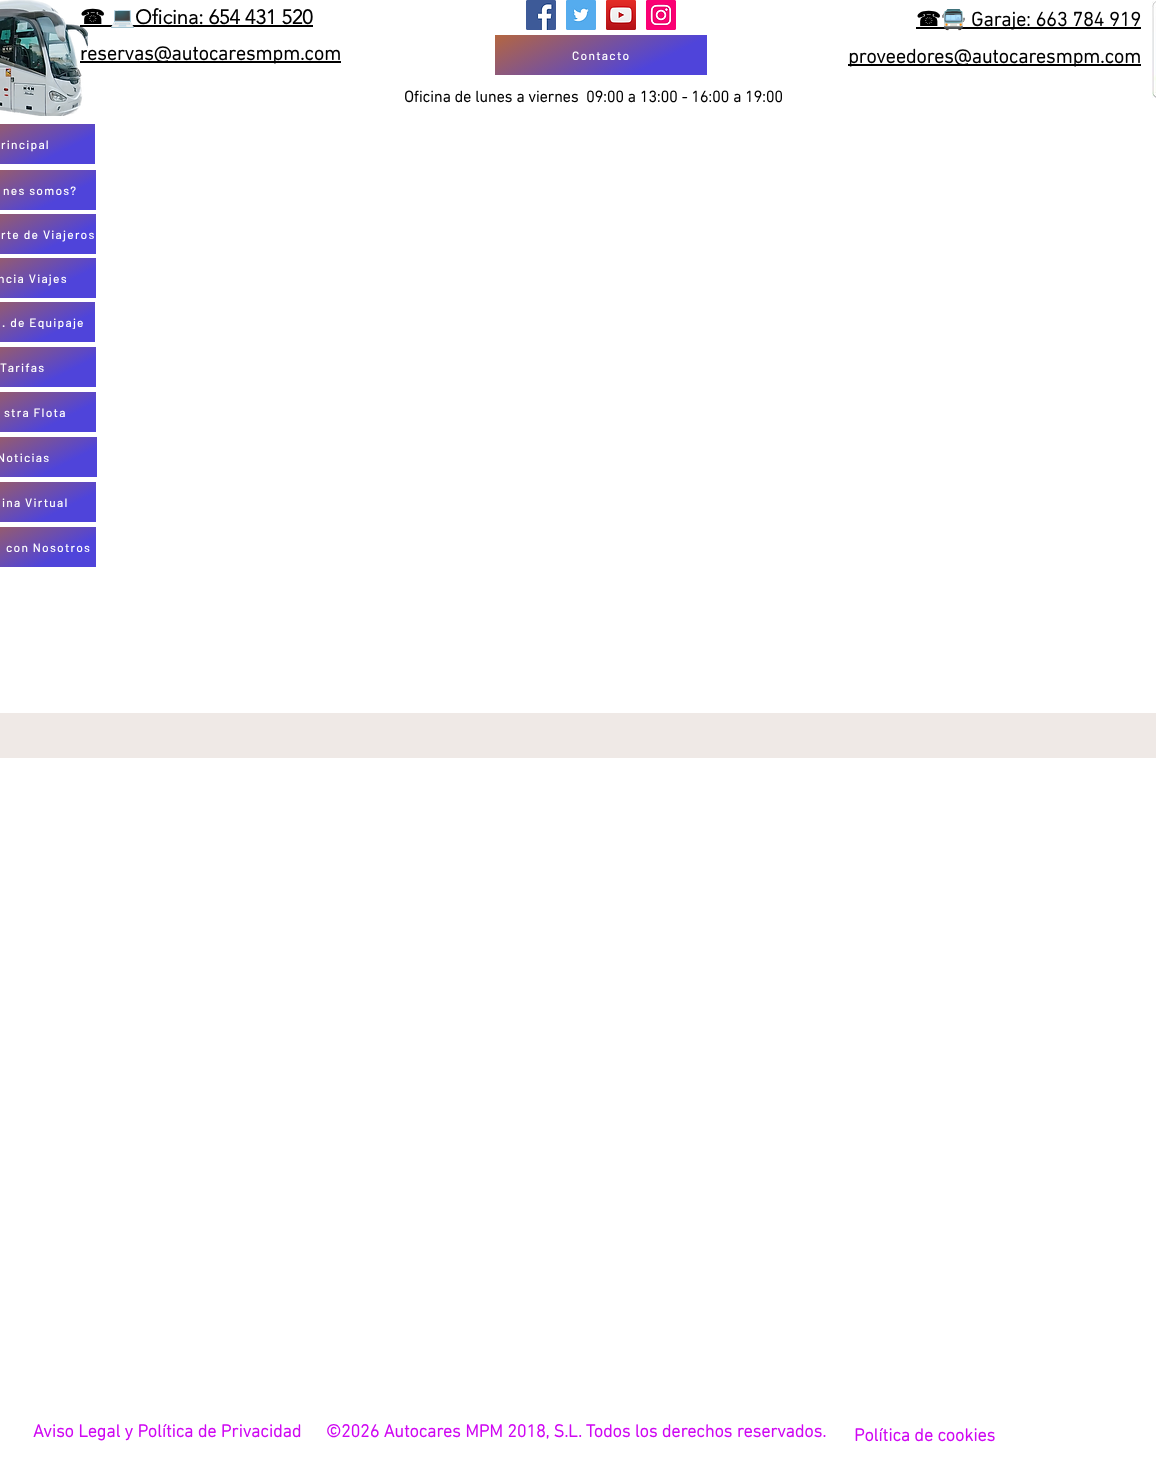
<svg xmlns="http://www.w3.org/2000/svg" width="1156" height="1469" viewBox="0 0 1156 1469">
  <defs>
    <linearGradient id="g1" gradientUnits="userSpaceOnUse" x1="631" y1="114" x2="571" y2="-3.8"><stop offset="0.26" stop-color="#4f44da"/><stop offset="1" stop-color="#b46640"/></linearGradient>
    <linearGradient id="g2" gradientUnits="userSpaceOnUse" x1="45" y1="190" x2="-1.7" y2="98"><stop offset="0.26" stop-color="#4f44da"/><stop offset="1" stop-color="#b46640"/></linearGradient>
    <linearGradient id="g3" gradientUnits="userSpaceOnUse" x1="46" y1="236" x2="-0.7" y2="144"><stop offset="0.26" stop-color="#4f44da"/><stop offset="1" stop-color="#b46640"/></linearGradient>
    <linearGradient id="g4" gradientUnits="userSpaceOnUse" x1="46" y1="280" x2="-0.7" y2="188"><stop offset="0.26" stop-color="#4f44da"/><stop offset="1" stop-color="#b46640"/></linearGradient>
    <linearGradient id="g5" gradientUnits="userSpaceOnUse" x1="45" y1="324" x2="-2.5" y2="232"><stop offset="0.26" stop-color="#4f44da"/><stop offset="1" stop-color="#b46640"/></linearGradient>
    <linearGradient id="g6" gradientUnits="userSpaceOnUse" x1="45" y1="368" x2="-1.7" y2="276"><stop offset="0.26" stop-color="#4f44da"/><stop offset="1" stop-color="#b46640"/></linearGradient>
    <clipPath id="clip1"><rect x="0" y="315" width="84" height="14"/></clipPath>
    <linearGradient id="g7" gradientUnits="userSpaceOnUse" x1="46" y1="413" x2="-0.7" y2="321"><stop offset="0.26" stop-color="#4f44da"/><stop offset="1" stop-color="#b46640"/></linearGradient>
    <linearGradient id="g8" gradientUnits="userSpaceOnUse" x1="46" y1="458" x2="-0.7" y2="366"><stop offset="0.26" stop-color="#4f44da"/><stop offset="1" stop-color="#b46640"/></linearGradient>
    <linearGradient id="g9" gradientUnits="userSpaceOnUse" x1="47" y1="503" x2="0.3" y2="411"><stop offset="0.26" stop-color="#4f44da"/><stop offset="1" stop-color="#b46640"/></linearGradient>
    <linearGradient id="g10" gradientUnits="userSpaceOnUse" x1="46" y1="548" x2="-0.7" y2="456"><stop offset="0.26" stop-color="#4f44da"/><stop offset="1" stop-color="#b46640"/></linearGradient>
    <linearGradient id="g11" gradientUnits="userSpaceOnUse" x1="46" y1="593" x2="-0.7" y2="501"><stop offset="0.26" stop-color="#4f44da"/><stop offset="1" stop-color="#b46640"/></linearGradient>
  </defs>
  <rect width="100%" height="100%" fill="#ffffff"/>
  <image x="0" y="0" width="88" height="116" href="img1.png"/>
  <text x="80" y="24" font-family="DejaVu Sans" font-size="20" font-weight="bold" fill="#000000">☎</text>
  <rect x="80" y="25" width="233" height="2" fill="#000000"/>
  <text x="110" y="24" font-family="Noto Color Emoji" font-size="20" font-weight="bold" fill="#000000">💻</text>
  <text x="135" y="24" font-family="'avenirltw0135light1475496'" font-size="20" font-weight="bold" fill="#000000">Oficina: 654 431 520</text>
  <text x="80" y="60" font-family="'avenirltw0135light1475496'" font-size="20" font-weight="bold" fill="#000000">r</text>
  <rect x="80" y="61" width="261" height="2" fill="#000000"/>
  <text x="87" y="60" font-family="'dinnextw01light'" font-size="20" font-weight="bold" fill="#000000">eservas@autocaresmpm.com</text>
  <image x="526" y="0" width="30" height="30" href="img2.png"/>
  <image x="566" y="0" width="30" height="30" href="img3.png"/>
  <image x="606" y="0" width="30" height="30" href="img4.png"/>
  <image x="646" y="0" width="30" height="30" href="img5.png"/>
  <text x="916" y="26" font-family="DejaVu Sans" font-size="20" font-weight="bold" fill="#000000">☎</text>
  <rect x="916" y="27" width="225" height="2" fill="#000000"/>
  <text x="941" y="26" font-family="Noto Color Emoji" font-size="20" font-weight="bold" fill="#000000">🚍</text>
  <text x="971" y="26" font-family="'dinnextw01light'" font-size="20" font-weight="bold" fill="#000000">Garaje: 663 784 919</text>
  <rect x="848" y="64" width="293" height="2" fill="#000000"/>
  <text x="848" y="63" font-family="'dinnextw01light'" font-size="20" font-weight="bold" fill="#000000">proveedores@autocaresmpm.com</text>
  <image x="1152" y="1" width="4" height="97" href="img6.png"/>
  <rect x="495" y="35" width="212" height="40" fill="url(#g1)"/>
  <text x="572" y="60" font-family="Barlow" font-size="12" font-weight="500" letter-spacing="1.25" fill="#ffffff">Contacto</text>
  <text x="404" y="102" font-family="'dinnextw01light'" font-size="16" font-weight="bold" fill="#000000">Oficina de lunes a viernes</text>
  <text x="586" y="102" font-family="'dinnextw01light'" font-size="16" font-weight="bold" fill="#000000">09:00 a 13:00 - 16:00 a 19:00</text>
  <rect x="0" y="124" width="95" height="40" fill="url(#g2)"/>
  <text x="1" y="149" font-family="Barlow" font-size="12" font-weight="500" letter-spacing="1.25" fill="#ffffff">rincipal</text>
  <rect x="0" y="170" width="96" height="40" fill="url(#g3)"/>
  <text x="3" y="195" font-family="Barlow" font-size="12" font-weight="500" letter-spacing="1.25" fill="#ffffff">nes somos?</text>
  <rect x="0" y="214" width="96" height="40" fill="url(#g4)"/>
  <text x="1" y="239" font-family="Barlow" font-size="12" font-weight="500" letter-spacing="1.25" fill="#ffffff">rte de Viajeros</text>
  <rect x="0" y="258" width="96" height="40" fill="url(#g5)"/>
  <text x="-2" y="283" font-family="Barlow" font-size="12" font-weight="500" letter-spacing="1.25" fill="#ffffff">ncia Viajes</text>
  <rect x="0" y="302" width="95" height="40" fill="url(#g6)"/>
  <g clip-path="url(#clip1)">
    <text x="2" y="327" font-family="Barlow" font-size="12" font-weight="500" letter-spacing="1.25" fill="#ffffff">. de Equipaje</text>
  </g>
  <rect x="0" y="347" width="96" height="40" fill="url(#g7)"/>
  <text x="0" y="372" font-family="Barlow" font-size="12" font-weight="500" letter-spacing="1.25" fill="#ffffff">Tarifas</text>
  <rect x="0" y="392" width="96" height="40" fill="url(#g8)"/>
  <text x="4" y="417" font-family="Barlow" font-size="12" font-weight="500" letter-spacing="1.25" fill="#ffffff">stra Flota</text>
  <rect x="0" y="437" width="97" height="40" fill="url(#g9)"/>
  <text x="-3" y="462" font-family="Barlow" font-size="12" font-weight="500" letter-spacing="1.25" fill="#ffffff">Noticias</text>
  <rect x="0" y="482" width="96" height="40" fill="url(#g10)"/>
  <text x="2" y="507" font-family="Barlow" font-size="12" font-weight="500" letter-spacing="1.25" fill="#ffffff">ina Virtual</text>
  <rect x="0" y="527" width="96" height="40" fill="url(#g11)"/>
  <text x="6" y="552" font-family="Barlow" font-size="12" font-weight="500" letter-spacing="1.25" fill="#ffffff">con Nosotros</text>
  <rect x="0" y="713" width="1156" height="45" fill="#efe9e6"/>
  <text x="33" y="1437" font-family="'dinnextw01light'" font-size="18" font-weight="bold" fill="#cf07f2">Aviso Legal y Política de Privacidad</text>
  <text x="326" y="1437" font-family="'dinnextw01light'" font-size="18" font-weight="bold" fill="#cf07f2">©2026 Autocares MPM 2018, S.L. Todos los derechos reservados.</text>
  <text x="854" y="1441" font-family="'dinnextw01light'" font-size="18" font-weight="bold" fill="#cf07f2">Política de cookies</text>
</svg>
